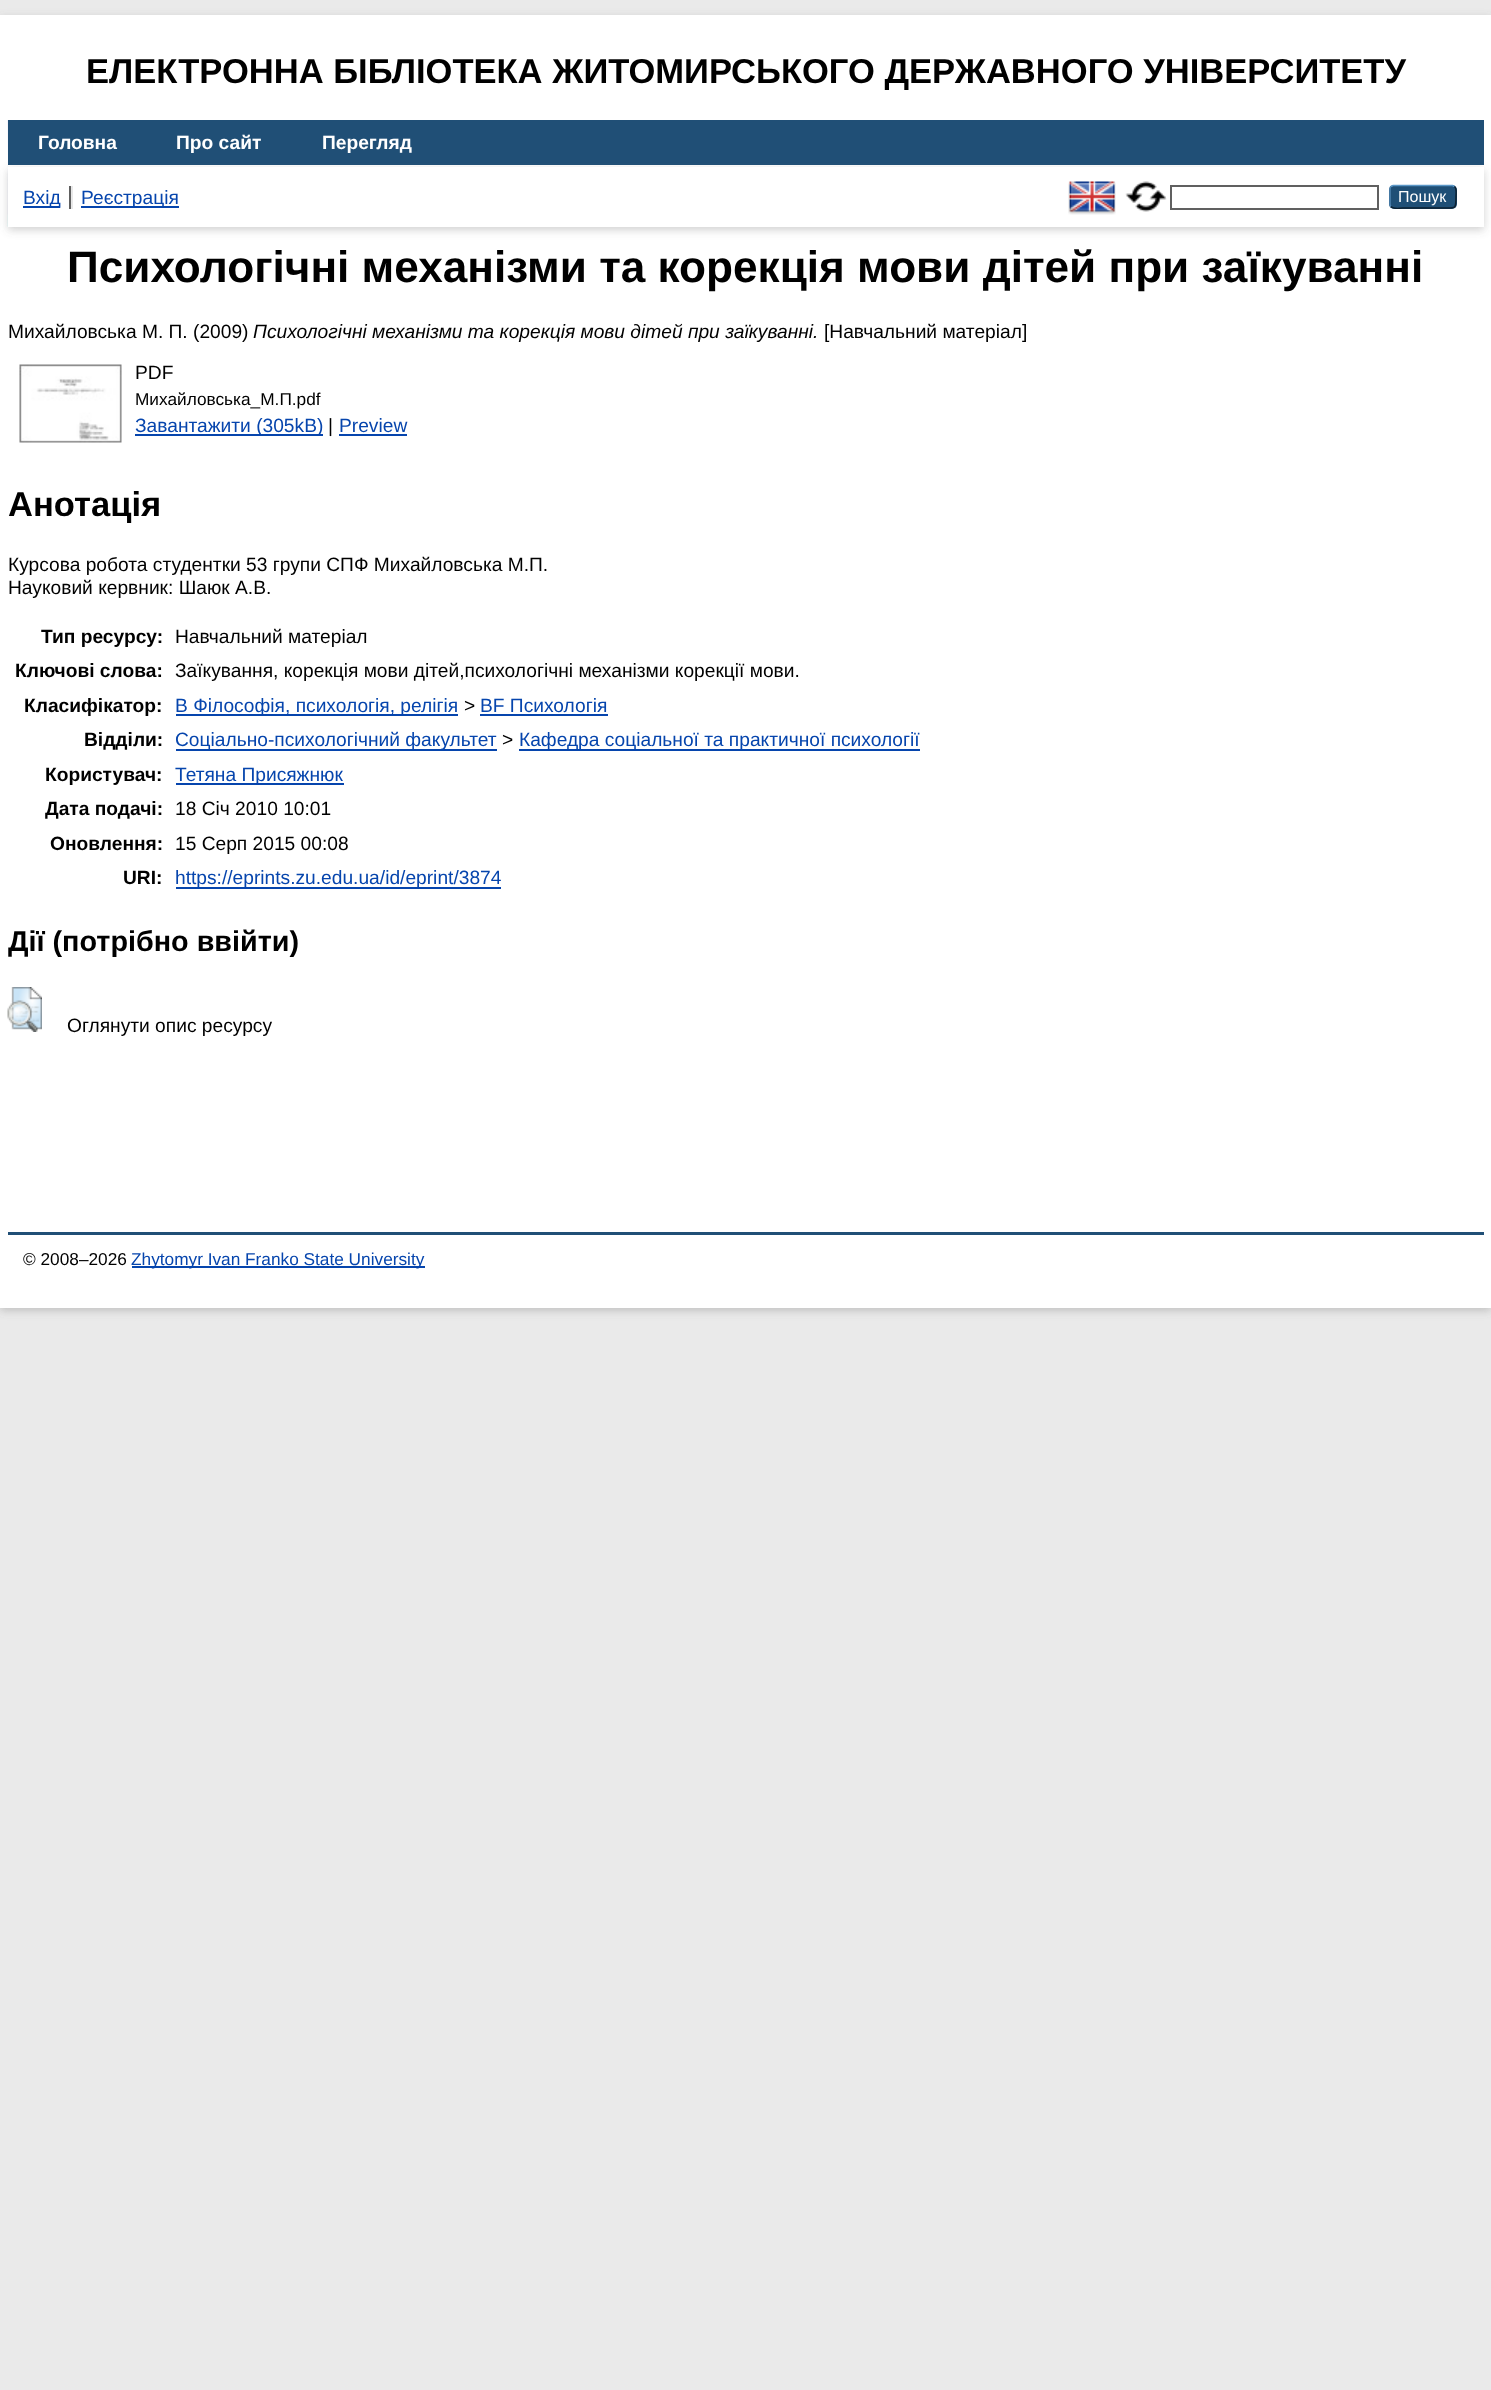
<svg xmlns="http://www.w3.org/2000/svg" width="1491" height="2390" viewBox="0 0 1491 2390">
  <defs>
    <filter id="blur1" x="-50%" y="-200%" width="200%" height="500%"><feGaussianBlur stdDeviation="4.5"/></filter>
  </defs>
  <rect width="100%" height="100%" fill="#eaeaea"/>
  <rect x="0" y="18" width="1491" height="1293" fill="#646464" fill-opacity="0.3" filter="url(#blur1)"/>
  <rect x="0" y="15" width="1491" height="1293" fill="#ffffff"/>
  <text x="86" y="83" font-family="Liberation Sans" font-size="34.55" font-weight="bold" fill="#000000">ЕЛЕКТРОННА БІБЛІОТЕКА ЖИТОМИРСЬКОГО ДЕРЖАВНОГО УНІВЕРСИТЕТУ</text>
  <image x="7" y="120" width="1" height="107" href="img1.png"/>
  <rect x="8" y="120" width="1476" height="45" fill="#204f76"/>
  <text x="38" y="149" font-family="Liberation Sans" font-size="19.2" font-weight="bold" fill="#ffffff">Головна</text>
  <text x="176" y="149" font-family="Liberation Sans" font-size="19.2" font-weight="bold" fill="#ffffff">Про сайт</text>
  <text x="322" y="149" font-family="Liberation Sans" font-size="19.2" font-weight="bold" fill="#ffffff">Перегляд</text>
  <rect x="8" y="170" width="1476" height="60" fill="#646464" fill-opacity="0.3" filter="url(#blur1)"/>
  <rect x="8" y="167" width="1476" height="60" fill="#ffffff"/>
  <rect x="69" y="186" width="2" height="23" fill="#606060"/>
  <rect x="23" y="206" width="37" height="2" fill="#0645ad"/>
  <text x="23" y="204" font-family="Liberation Sans" font-size="19.2" fill="#0645ad">Вхід</text>
  <rect x="71" y="186" width="2" height="23" fill="#e8e8e8"/>
  <rect x="81" y="206" width="98" height="2" fill="#0645ad"/>
  <text x="81" y="204" font-family="Liberation Sans" font-size="19.2" fill="#0645ad">Реєстрація</text>
  <image x="1068" y="181" width="48" height="34" href="img2.png"/>
  <image x="1125" y="181" width="42" height="31" href="img3.png"/>
  <rect x="1171" y="186" width="207" height="23" fill="none" stroke="#606060" stroke-width="2"/>
  <rect x="1389" y="185" width="68" height="24" rx="5" fill="#1f4f76"/>
  <path d="M1391 186.5L1393 185.5H1452.5L1454.5 186.5" fill="none" stroke="#5b97c7" stroke-width="1.5"/>
  <path d="M1454.5 186.5C1457 188.5 1456 193.5 1456 196.5C1456 209.5 1456 208 1442 208H1403C1402.5 208 1393.5 209.5 1391 206.5" fill="none" stroke="#0d2131" stroke-width="1.5"/>
  <path d="M1391 206.5C1390 206 1390 205 1390 204V189C1390 188 1390 187 1391 186.5" fill="none" stroke="#5287b3" stroke-width="1.5"/>
  <text x="1398" y="202" font-family="Liberation Sans" font-size="16" fill="#ffffff">Пошук</text>
  <text x="67" y="282" font-family="Liberation Sans" font-size="44.15" font-weight="bold" fill="#000000">Психологічні механізми та корекція мови дітей при заїкуванні</text>
  <text x="8" y="338" font-family="Liberation Sans" font-size="19.2" fill="#000000">Михайловська М. П. (2009)</text>
  <text x="253" y="338" font-family="Liberation Sans" font-size="19.2" font-style="italic" fill="#000000">Психологічні механізми та корекція мови дітей при заїкуванні.</text>
  <text x="824" y="338" font-family="Liberation Sans" font-size="19.2" fill="#000000">[Навчальний матеріал]</text>
  <image x="19" y="364" width="103" height="79" href="img4.png"/>
  <text x="135" y="379" font-family="Liberation Sans" font-size="19.2" fill="#000000">PDF</text>
  <text x="135" y="405" font-family="Liberation Sans" font-size="17.25" fill="#000000">Михайловська_М.П.pdf</text>
  <rect x="135" y="434" width="188" height="2" fill="#0645ad"/>
  <text x="135" y="432" font-family="Liberation Sans" font-size="19.2" fill="#0645ad">Завантажити (305kB)</text>
  <text x="328" y="432" font-family="Liberation Sans" font-size="19.2" fill="#000000">|</text>
  <text x="339" y="432" font-family="Liberation Sans" font-size="19.2" fill="#0645ad">Preview</text>
  <rect x="339" y="434" width="68" height="2" fill="#0645ad"/>
  <text x="8" y="516" font-family="Liberation Sans" font-size="34.55" font-weight="bold" fill="#000000">Анотація</text>
  <text x="8" y="571" font-family="Liberation Sans" font-size="19.2" fill="#000000">Курсова робота студентки 53 групи СПФ Михайловська М.П.</text>
  <text x="8" y="594" font-family="Liberation Sans" font-size="19.2" fill="#000000">Науковий кервник: Шаюк А.В.</text>
  <text x="41" y="643" font-family="Liberation Sans" font-size="19.2" font-weight="bold" fill="#000000">Тип ресурсу:</text>
  <text x="175" y="643" font-family="Liberation Sans" font-size="19.2" fill="#000000">Навчальний матеріал</text>
  <text x="15" y="677" font-family="Liberation Sans" font-size="19.2" font-weight="bold" fill="#000000">Ключові слова:</text>
  <text x="175" y="677" font-family="Liberation Sans" font-size="19.2" fill="#000000">Заїкування, корекція мови дітей,психологічні механізми корекції мови.</text>
  <text x="24" y="712" font-family="Liberation Sans" font-size="19.2" font-weight="bold" fill="#000000">Класифікатор:</text>
  <rect x="176" y="714" width="282" height="2" fill="#0645ad"/>
  <text x="175" y="712" font-family="Liberation Sans" font-size="19.2" fill="#0645ad">B Філософія, психологія, релігія</text>
  <text x="464" y="712" font-family="Liberation Sans" font-size="19.2" fill="#000000">&gt;</text>
  <text x="480" y="712" font-family="Liberation Sans" font-size="19.2" fill="#0645ad">BF Психологія</text>
  <rect x="480" y="714" width="128" height="2" fill="#0645ad"/>
  <text x="84" y="746" font-family="Liberation Sans" font-size="19.2" font-weight="bold" fill="#000000">Відділи:</text>
  <rect x="176" y="749" width="321" height="2" fill="#0645ad"/>
  <text x="175" y="746" font-family="Liberation Sans" font-size="19.2" fill="#0645ad">Соціально-психологічний факультет</text>
  <text x="502" y="746" font-family="Liberation Sans" font-size="19.2" fill="#000000">&gt;</text>
  <rect x="519" y="749" width="401" height="2" fill="#0645ad"/>
  <text x="519" y="746" font-family="Liberation Sans" font-size="19.2" fill="#0645ad">Кафедра соціальної та практичної психології</text>
  <text x="45" y="781" font-family="Liberation Sans" font-size="19.2" font-weight="bold" fill="#000000">Користувач:</text>
  <rect x="176" y="783" width="168" height="2" fill="#0645ad"/>
  <text x="175" y="781" font-family="Liberation Sans" font-size="19.2" fill="#0645ad">Тетяна Присяжнюк</text>
  <text x="45" y="815" font-family="Liberation Sans" font-size="19.2" font-weight="bold" fill="#000000">Дата подачі:</text>
  <text x="175" y="815" font-family="Liberation Sans" font-size="19.2" fill="#000000">18 Січ 2010 10:01</text>
  <text x="50" y="850" font-family="Liberation Sans" font-size="19.2" font-weight="bold" fill="#000000">Оновлення:</text>
  <text x="175" y="850" font-family="Liberation Sans" font-size="19.2" fill="#000000">15 Серп 2015 00:08</text>
  <text x="123" y="884" font-family="Liberation Sans" font-size="19.2" font-weight="bold" fill="#000000">URI:</text>
  <rect x="176" y="887" width="325" height="2" fill="#0645ad"/>
  <text x="175" y="884" font-family="Liberation Sans" font-size="19.2" fill="#0645ad">https://eprints.zu.edu.ua/id/eprint/3874</text>
  <text x="8" y="951" font-family="Liberation Sans" font-size="28.75" font-weight="bold" fill="#000000">Дії (потрібно ввійти)</text>
  <image x="7" y="987" width="35" height="45" href="img5.png"/>
  <text x="67" y="1032" font-family="Liberation Sans" font-size="19.2" fill="#000000">Оглянути опис ресурсу</text>
  <rect x="8" y="1232" width="1476" height="3" fill="#204f76"/>
  <text x="23" y="1265" font-family="Liberation Sans" font-size="17.25" fill="#000000">© 2008–2026</text>
  <rect x="132" y="1266" width="293" height="2" fill="#0645ad"/>
  <text x="131" y="1265" font-family="Liberation Sans" font-size="17.25" fill="#0645ad">Zhytomyr Ivan Franko State University</text>
</svg>
